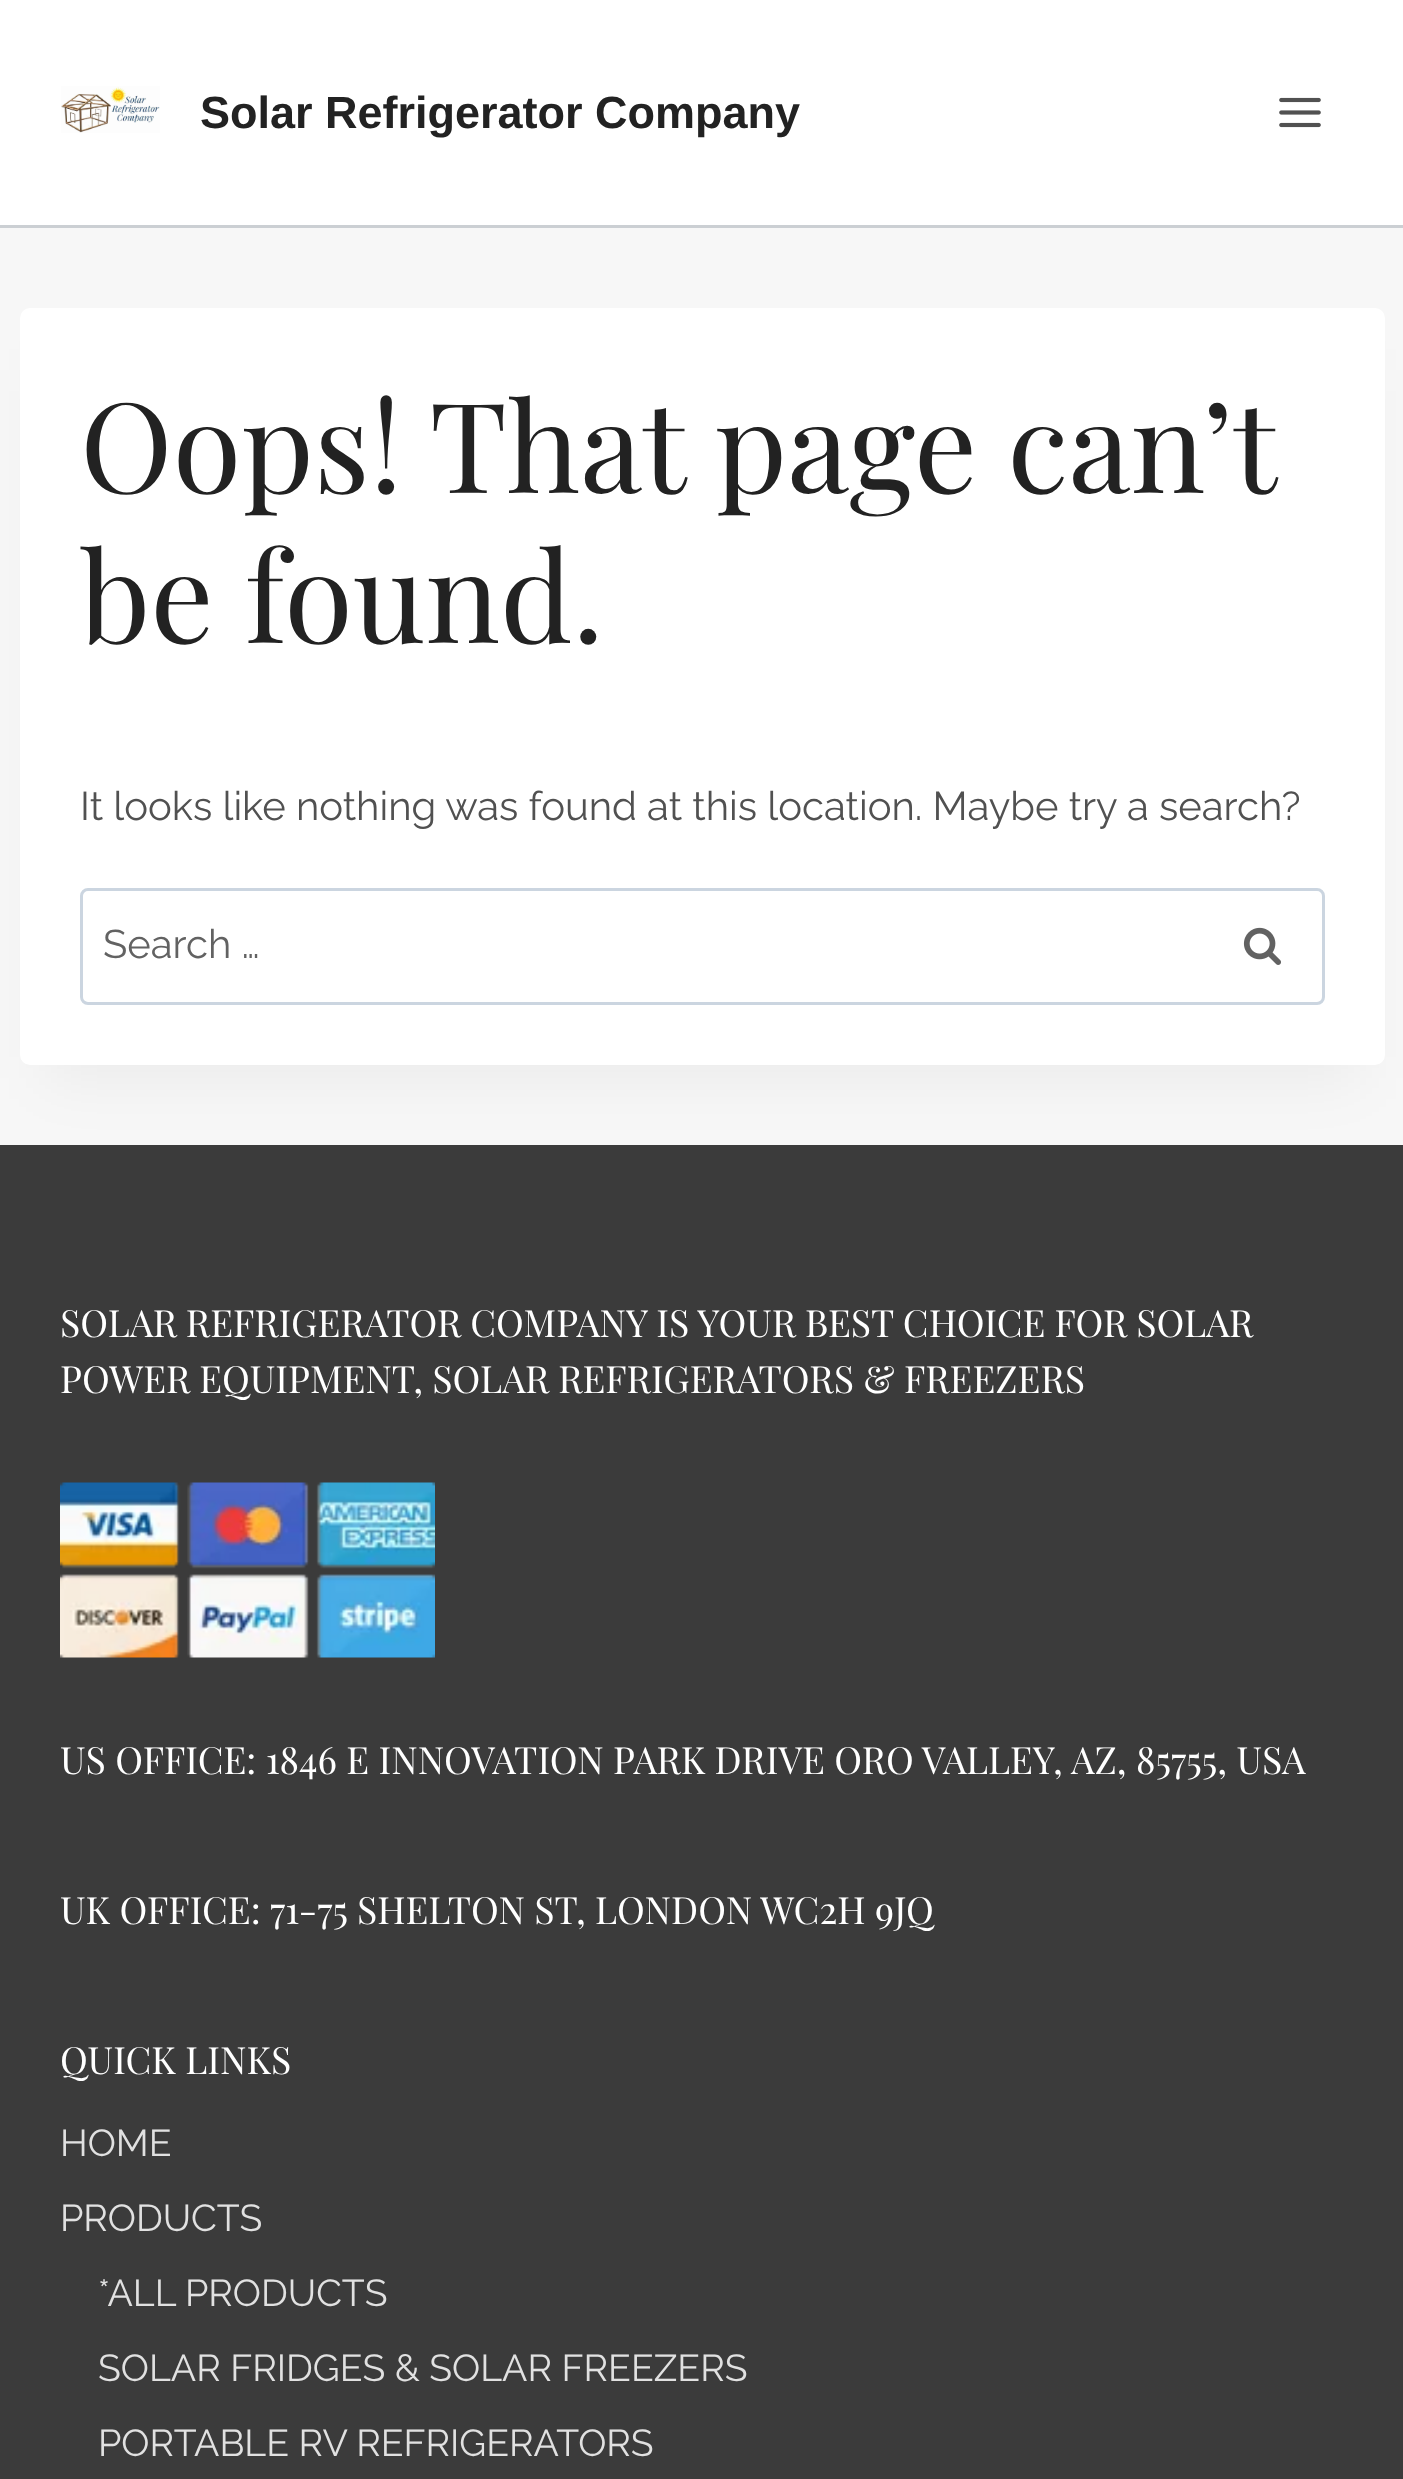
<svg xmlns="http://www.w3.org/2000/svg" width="1403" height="2479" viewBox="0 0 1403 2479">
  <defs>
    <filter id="blur1" x="-50%" y="-200%" width="200%" height="500%"><feGaussianBlur stdDeviation="31"/></filter>
  </defs>
  <rect width="100%" height="100%" fill="#f7f7f7"/>
  <rect x="0" y="0" width="1403" height="225" fill="#ffffff"/>
  <rect x="0" y="225" width="1403" height="3" fill="#cbcfd3"/>
  <image x="61" y="86" width="99" height="47" href="img1.png"/>
  <text x="200" y="128" font-family="Liberation Sans" font-size="45" font-weight="bold" fill="#222222">Solar Refrigerator Company</text>
  <image x="1279" y="97" width="42" height="31" href="img2.png"/>
  <rect x="0" y="1145" width="1403" height="1334" fill="#3b3b3b"/>
  <rect x="45" y="370" width="1315" height="708" fill="#000000" fill-opacity="0.05" filter="url(#blur1)"/>
  <rect x="20" y="308" width="1365" height="757" rx="10" fill="#ffffff"/>
  <text x="80" y="493" word-spacing="-1" font-family="Playfair Display" font-size="125" fill="#222222">Oops! That page can’t</text>
  <text x="80" y="643" font-family="Playfair Display" font-size="125" fill="#222222">be found.</text>
  <text x="80" y="820" font-family="Raleway" font-size="40" fill="#515151">It looks like nothing was found at this location. Maybe try a search?</text>
  <rect x="81.5" y="889.5" width="1242" height="114" rx="6.5" fill="none" stroke="#cbd5e0" stroke-width="3"/>
  <text x="103" y="958" font-family="Raleway" font-size="40" fill="#626262">Search …</text>
  <image x="1243" y="927" width="38" height="38" href="img3.png"/>
  <text x="60" y="1337" font-family="Playfair Display" font-size="37.5" fill="#ffffff">SOLAR REFRIGERATOR COMPANY IS YOUR BEST CHOICE FOR SOLAR</text>
  <text x="60" y="1393" font-family="Playfair Display" font-size="37.5" fill="#ffffff">POWER EQUIPMENT, SOLAR REFRIGERATORS &amp; FREEZERS</text>
  <image x="60" y="1482" width="375" height="176" href="img4.png"/>
  <text x="60" y="1774" font-family="Playfair Display" font-size="37.5" fill="#ffffff">US OFFICE: 1846 E INNOVATION PARK DRIVE ORO VALLEY, AZ, 85755, USA</text>
  <text x="60" y="1924" font-family="Playfair Display" font-size="37.5" fill="#ffffff">UK OFFICE: 71-75 SHELTON ST, LONDON WC2H 9JQ</text>
  <text x="60" y="2074" font-family="Playfair Display" font-size="37.5" fill="#ffffff">QUICK LINKS</text>
  <text x="60" y="2156" font-family="Raleway" font-size="37.5" fill="#e1e1e1">HOME</text>
  <text x="60" y="2231" font-family="Raleway" font-size="37.5" fill="#e1e1e1">PRODUCTS</text>
  <text x="98" y="2306" font-family="Raleway" font-size="37.5" fill="#e1e1e1">*ALL PRODUCTS</text>
  <text x="98" y="2381" font-family="Raleway" font-size="37.5" fill="#e1e1e1">SOLAR FRIDGES &amp; SOLAR FREEZERS</text>
  <text x="98" y="2456" font-family="Raleway" font-size="37.5" fill="#e1e1e1">PORTABLE RV REFRIGERATORS</text>
</svg>
